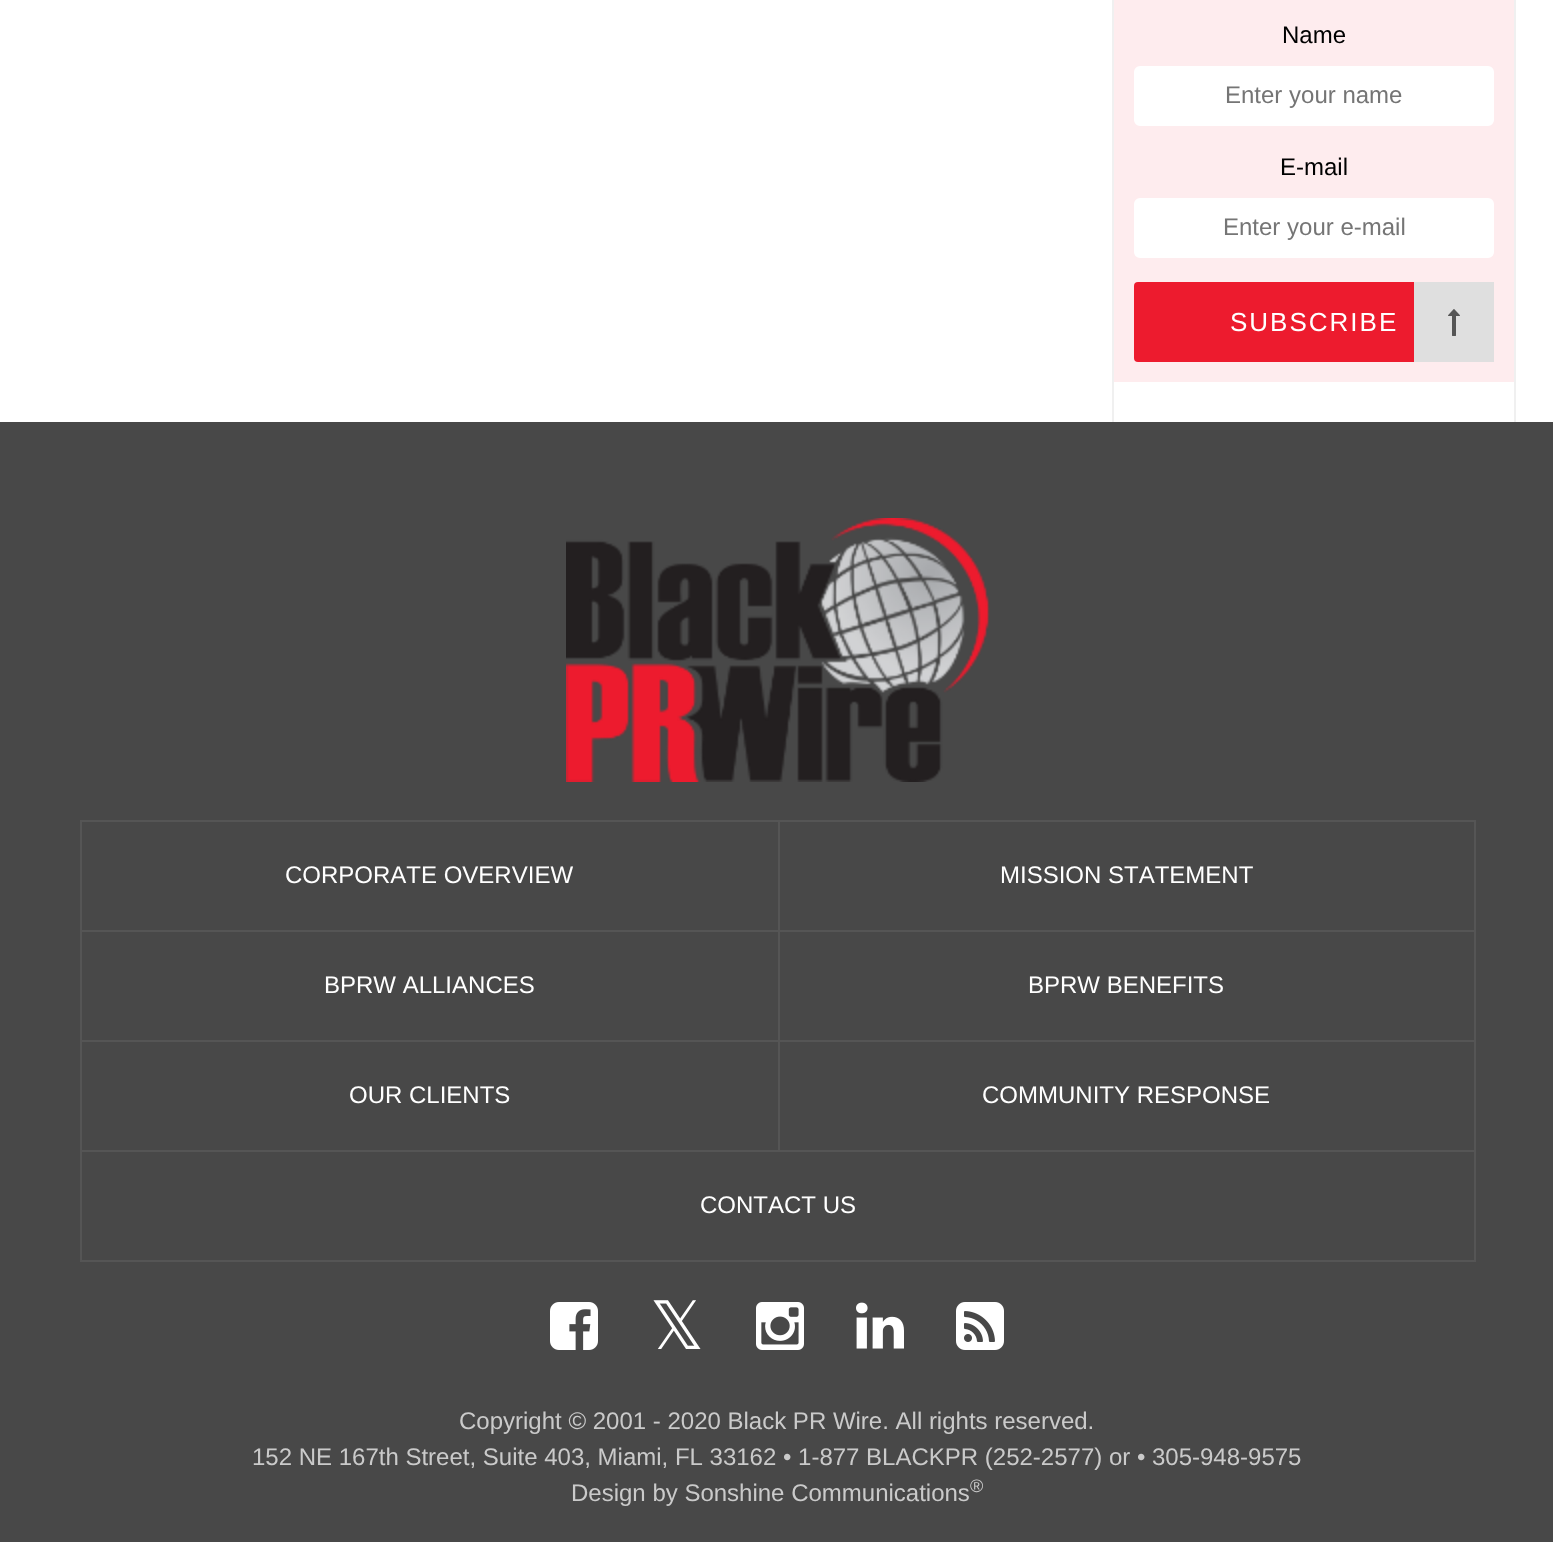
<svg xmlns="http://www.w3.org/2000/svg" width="1553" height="1542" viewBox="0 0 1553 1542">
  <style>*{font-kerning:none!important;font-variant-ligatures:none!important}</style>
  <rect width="100%" height="100%" fill="#ffffff"/>
  <rect x="1112" y="0" width="2" height="422" fill="#f0f0f0"/>
  <rect x="1514" y="0" width="2" height="422" fill="#f0f0f0"/>
  <rect x="1114" y="0" width="400" height="382" fill="#feecee"/>
  <text x="1282" y="43" font-family="Liberation Sans" font-size="24" fill="#000000">Name</text>
  <rect x="1135" y="67" width="358" height="58" rx="5" fill="#ffffff" stroke="#ffffff" stroke-width="2"/>
  <text x="1225" y="103" font-family="Liberation Sans" font-size="24" fill="#757575">Enter your name</text>
  <text x="1280" y="175" font-family="Liberation Sans" font-size="24" fill="#000000">E-mail</text>
  <rect x="1135" y="199" width="358" height="58" rx="5" fill="#ffffff" stroke="#ffffff" stroke-width="2"/>
  <text x="1223" y="235" font-family="Liberation Sans" font-size="24" fill="#757575">Enter your e-mail</text>
  <rect x="1134" y="282" width="360" height="80" rx="4" fill="#ed1b2e"/>
  <text x="1230" y="331" font-family="Liberation Sans" font-size="26" letter-spacing="2" fill="#ffffff">SUBSCRIBE</text>
  <rect x="1414" y="282" width="80" height="80" fill="#dfdfdf"/>
  <image x="1448" y="309" width="12" height="27" href="img1.png"/>
  <rect x="0" y="422" width="1553" height="1120" fill="#484848"/>
  <image x="566" y="518" width="424" height="264" href="img2.png"/>
  <rect x="81" y="821" width="698" height="110" fill="none" stroke="#555555" stroke-width="2"/>
  <text x="285" y="883" font-family="Liberation Sans" font-size="24" fill="#ffffff">CORPORATE OVERVIEW</text>
  <rect x="779" y="821" width="696" height="110" fill="none" stroke="#555555" stroke-width="2"/>
  <text x="1000" y="883" font-family="Liberation Sans" font-size="24" fill="#ffffff">MISSION STATEMENT</text>
  <rect x="81" y="931" width="698" height="110" fill="none" stroke="#555555" stroke-width="2"/>
  <text x="324" y="993" font-family="Liberation Sans" font-size="24" fill="#ffffff">BPRW ALLIANCES</text>
  <rect x="779" y="931" width="696" height="110" fill="none" stroke="#555555" stroke-width="2"/>
  <text x="1028" y="993" font-family="Liberation Sans" font-size="24" fill="#ffffff">BPRW BENEFITS</text>
  <rect x="81" y="1041" width="698" height="110" fill="none" stroke="#555555" stroke-width="2"/>
  <text x="349" y="1103" font-family="Liberation Sans" font-size="24" fill="#ffffff">OUR CLIENTS</text>
  <rect x="779" y="1041" width="696" height="110" fill="none" stroke="#555555" stroke-width="2"/>
  <text x="982" y="1103" font-family="Liberation Sans" font-size="24" fill="#ffffff">COMMUNITY RESPONSE</text>
  <rect x="81" y="1151" width="1394" height="110" fill="none" stroke="#555555" stroke-width="2"/>
  <text x="700" y="1213" font-family="Liberation Sans" font-size="24" fill="#ffffff">CONTACT US</text>
  <image x="550" y="1302" width="48" height="48" href="img3.png"/>
  <text x="650" y="1349" font-family="DejaVu Sans" font-size="67" fill="#ffffff">𝕏</text>
  <image x="756" y="1302" width="48" height="48" href="img4.png"/>
  <image x="856" y="1302" width="48" height="47" href="img5.png"/>
  <image x="956" y="1302" width="48" height="48" href="img6.png"/>
  <text x="459" y="1429" font-family="Liberation Sans" font-size="24" fill="#cacaca">Copyright © 2001 - 2020 Black PR Wire. All rights reserved.</text>
  <text x="252" y="1465" font-family="Liberation Sans" font-size="24" fill="#cacaca">152 NE 167th Street, Suite 403, Miami, FL 33162 • 1-877 BLACKPR (252-2577) or • 305-948-9575</text>
  <text x="571" y="1501" font-family="Liberation Sans" font-size="24" fill="#cacaca">Design by Sonshine Communications</text>
  <text x="970" y="1492" font-family="Liberation Sans" font-size="18" fill="#cacaca">®</text>
</svg>
